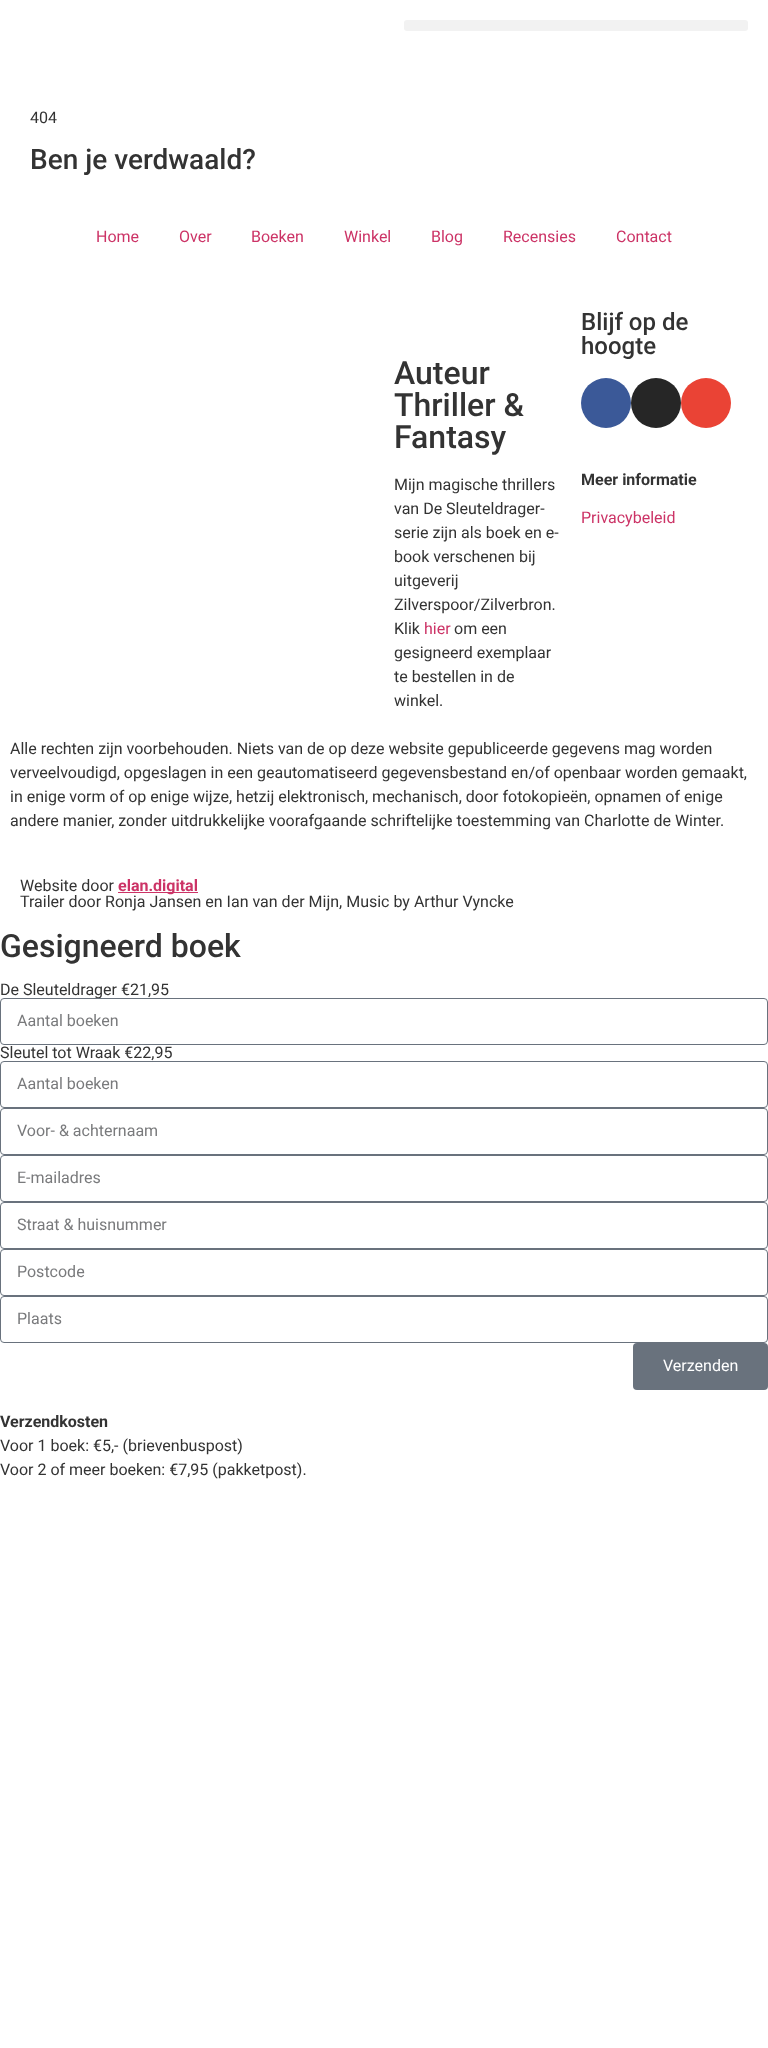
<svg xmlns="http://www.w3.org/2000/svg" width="768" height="2048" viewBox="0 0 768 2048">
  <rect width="100%" height="100%" fill="#ffffff"/>
  <rect x="404" y="20" width="344" height="11" rx="3" fill="#f2f2f2"/>
  <text x="30" y="123" font-family="Roboto" font-size="16" fill="#333333">404</text>
  <text x="30" y="169" font-family="Roboto" font-size="28" font-weight="500" fill="#333333">Ben je verdwaald?</text>
  <text x="96" y="242" font-family="Roboto" font-size="16" fill="#cc3366">Home</text>
  <text x="179" y="242" font-family="Roboto" font-size="16" fill="#cc3366">Over</text>
  <text x="251" y="242" font-family="Roboto" font-size="16" fill="#cc3366">Boeken</text>
  <text x="344" y="242" font-family="Roboto" font-size="16" fill="#cc3366">Winkel</text>
  <text x="431" y="242" font-family="Roboto" font-size="16" fill="#cc3366">Blog</text>
  <text x="503" y="242" font-family="Roboto" font-size="16" fill="#cc3366">Recensies</text>
  <text x="616" y="242" font-family="Roboto" font-size="16" fill="#cc3366">Contact</text>
  <text x="394" y="384" font-family="Roboto" font-size="32" font-weight="500" fill="#333333">Auteur</text>
  <text x="394" y="416" font-family="Roboto" font-size="32" font-weight="500" fill="#333333">Thriller &amp;</text>
  <text x="394" y="448" font-family="Roboto" font-size="32" font-weight="500" fill="#333333">Fantasy</text>
  <text x="394" y="490" font-family="Roboto" font-size="16" fill="#333333">Mijn magische thrillers</text>
  <text x="394" y="514" font-family="Roboto" font-size="16" fill="#333333">van De Sleuteldrager-</text>
  <text x="394" y="538" font-family="Roboto" font-size="16" fill="#333333">serie zijn als boek en e-</text>
  <text x="394" y="562" font-family="Roboto" font-size="16" fill="#333333">book verschenen bij</text>
  <text x="394" y="586" font-family="Roboto" font-size="16" fill="#333333">uitgeverij</text>
  <text x="394" y="610" font-family="Roboto" font-size="16" fill="#333333">Zilverspoor/Zilverbron.</text>
  <text x="394" y="634" font-family="Roboto" font-size="16" fill="#333333">Klik</text>
  <text x="424" y="634" font-family="Roboto" font-size="16" fill="#cc3366">hier</text>
  <text x="454" y="634" font-family="Roboto" font-size="16" fill="#333333">om een</text>
  <text x="394" y="658" font-family="Roboto" font-size="16" fill="#333333">gesigneerd exemplaar</text>
  <text x="394" y="682" font-family="Roboto" font-size="16" fill="#333333">te bestellen in de</text>
  <text x="394" y="706" font-family="Roboto" font-size="16" fill="#333333">winkel.</text>
  <text x="581" y="330" font-family="Roboto" font-size="24" font-weight="500" fill="#333333">Blijf op de</text>
  <text x="581" y="354" font-family="Roboto" font-size="24" font-weight="500" fill="#333333">hoogte</text>
  <circle cx="606" cy="403" r="25" fill="#3b5998"/>
  <circle cx="656" cy="403" r="25" fill="#262626"/>
  <circle cx="706" cy="403" r="25" fill="#ea4335"/>
  <text x="581" y="485" font-family="Roboto" font-size="16" font-weight="bold" fill="#333333">Meer informatie</text>
  <text x="581" y="523" font-family="Roboto" font-size="16" fill="#cc3366">Privacybeleid</text>
  <text x="10" y="754" font-family="Roboto" font-size="16" fill="#333333">Alle rechten zijn voorbehouden. Niets van de op deze website gepubliceerde gegevens mag worden</text>
  <text x="10" y="778" font-family="Roboto" font-size="16" fill="#333333">verveelvoudigd, opgeslagen in een geautomatiseerd gegevensbestand en/of openbaar worden gemaakt,</text>
  <text x="10" y="802" font-family="Roboto" font-size="16" fill="#333333">in enige vorm of op enige wijze, hetzij elektronisch, mechanisch, door fotokopieën, opnamen of enige</text>
  <text x="10" y="826" font-family="Roboto" font-size="16" fill="#333333">andere manier, zonder uitdrukkelijke voorafgaande schriftelijke toestemming van Charlotte de Winter.</text>
  <text x="20" y="891" font-family="Roboto" font-size="16" fill="#333333">Website door</text>
  <rect x="118" y="892" width="80" height="1" fill="#cc3366"/>
  <text x="118" y="891" font-family="Roboto" font-size="16" font-weight="bold" fill="#cc3366">elan.digital</text>
  <text x="20" y="907" font-family="Roboto" font-size="16" fill="#333333">Trailer door Ronja Jansen en Ian van der Mijn, Music by Arthur Vyncke</text>
  <text x="0" y="957" font-family="Roboto" font-size="32" font-weight="500" fill="#333333">Gesigneerd boek</text>
  <text x="0" y="995" font-family="Roboto" font-size="16" fill="#333333">De Sleuteldrager €21,95</text>
  <rect x="0.5" y="998.5" width="767" height="46" rx="3.5" fill="none" stroke="#69727d"/>
  <text x="17" y="1026" font-family="Roboto" font-size="16" fill="#797a7c">Aantal boeken</text>
  <text x="0" y="1058" font-family="Roboto" font-size="16" fill="#333333">Sleutel tot Wraak €22,95</text>
  <rect x="0.5" y="1061.5" width="767" height="46" rx="3.5" fill="none" stroke="#69727d"/>
  <text x="17" y="1089" font-family="Roboto" font-size="16" fill="#797a7c">Aantal boeken</text>
  <rect x="0.5" y="1108.5" width="767" height="46" rx="3.5" fill="none" stroke="#69727d"/>
  <text x="17" y="1136" font-family="Roboto" font-size="16" fill="#797a7c">Voor- &amp; achternaam</text>
  <rect x="0.5" y="1155.5" width="767" height="46" rx="3.5" fill="none" stroke="#69727d"/>
  <text x="17" y="1183" font-family="Roboto" font-size="16" fill="#797a7c">E-mailadres</text>
  <rect x="0.5" y="1202.5" width="767" height="46" rx="3.5" fill="none" stroke="#69727d"/>
  <text x="17" y="1230" font-family="Roboto" font-size="16" fill="#797a7c">Straat &amp; huisnummer</text>
  <rect x="0.5" y="1249.5" width="767" height="46" rx="3.5" fill="none" stroke="#69727d"/>
  <text x="17" y="1277" font-family="Roboto" font-size="16" fill="#797a7c">Postcode</text>
  <rect x="0.5" y="1296.5" width="767" height="46" rx="3.5" fill="none" stroke="#69727d"/>
  <text x="17" y="1324" font-family="Roboto" font-size="16" fill="#797a7c">Plaats</text>
  <rect x="633" y="1343" width="135" height="47" rx="4" fill="#69727d"/>
  <text x="663" y="1371" font-family="Roboto" font-size="16" fill="#ffffff">Verzenden</text>
  <text x="0" y="1427" font-family="Roboto" font-size="16" font-weight="bold" fill="#333333">Verzendkosten</text>
  <text x="0" y="1451" font-family="Roboto" font-size="16" fill="#333333">Voor 1 boek: €5,- (brievenbuspost)</text>
  <text x="0" y="1475" font-family="Roboto" font-size="16" fill="#333333">Voor 2 of meer boeken: €7,95 (pakketpost).</text>
</svg>
